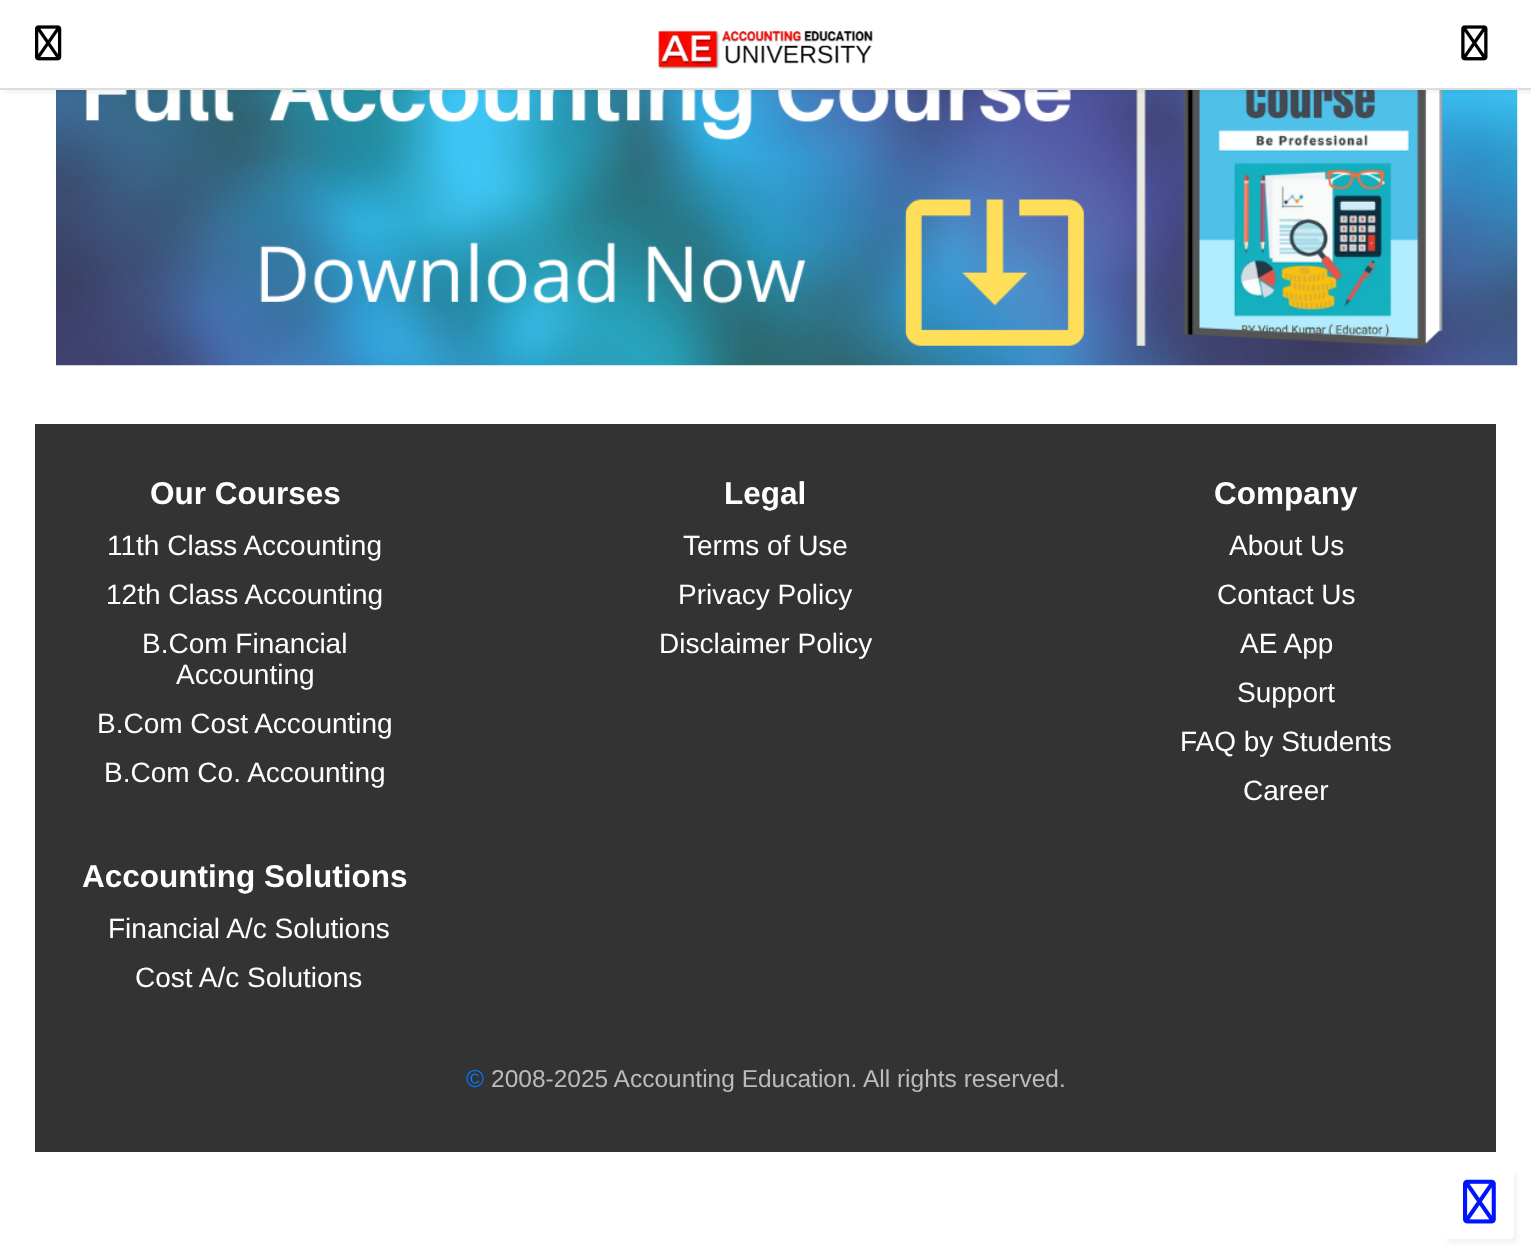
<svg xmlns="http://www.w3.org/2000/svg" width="1531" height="1255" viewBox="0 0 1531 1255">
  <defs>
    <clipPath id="clip1"><rect x="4" y="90" width="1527" height="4"/></clipPath>
    <filter id="blur1" x="-50%" y="-200%" width="200%" height="500%"><feGaussianBlur stdDeviation="2.5"/></filter>
  </defs>
  <rect width="100%" height="100%" fill="#ffffff"/>
  <image x="658" y="30" width="215" height="40" href="img3.png"/>
  <image x="56" y="90" width="1462" height="276" href="img4.png"/>
  <g clip-path="url(#clip1)">
    <rect x="4" y="4" width="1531" height="89" fill="#000000" fill-opacity="0.05" filter="url(#blur1)"/>
  </g>
  <rect x="0" y="88" width="1531" height="2" fill="#dddddd"/>
  <image x="35" y="25" width="27" height="36" href="img1.png"/>
  <image x="1461" y="25" width="27" height="36" href="img2.png"/>
  <rect x="35" y="424" width="1461" height="728" fill="#333333"/>
  <text x="150" y="504" font-family="Liberation Sans" font-size="31.5" font-weight="bold" fill="#ffffff">Our Courses</text>
  <text x="107" y="555" font-family="Liberation Sans" font-size="28" fill="#ffffff">11th Class Accounting</text>
  <text x="106" y="604" font-family="Liberation Sans" font-size="28" fill="#ffffff">12th Class Accounting</text>
  <text x="142" y="653" font-family="Liberation Sans" font-size="28" fill="#ffffff">B.Com Financial</text>
  <text x="176" y="684" font-family="Liberation Sans" font-size="28" fill="#ffffff">Accounting</text>
  <text x="97" y="733" font-family="Liberation Sans" font-size="28" fill="#ffffff">B.Com Cost Accounting</text>
  <text x="104" y="782" font-family="Liberation Sans" font-size="28" fill="#ffffff">B.Com Co. Accounting</text>
  <text x="724" y="504" font-family="Liberation Sans" font-size="31.5" font-weight="bold" fill="#ffffff">Legal</text>
  <text x="683" y="555" font-family="Liberation Sans" font-size="28" fill="#ffffff">Terms of Use</text>
  <text x="678" y="604" font-family="Liberation Sans" font-size="28" fill="#ffffff">Privacy Policy</text>
  <text x="659" y="653" font-family="Liberation Sans" font-size="28" fill="#ffffff">Disclaimer Policy</text>
  <text x="1214" y="504" font-family="Liberation Sans" font-size="31.5" font-weight="bold" fill="#ffffff">Company</text>
  <text x="1229" y="555" font-family="Liberation Sans" font-size="28" fill="#ffffff">About Us</text>
  <text x="1217" y="604" font-family="Liberation Sans" font-size="28" fill="#ffffff">Contact Us</text>
  <text x="1240" y="653" font-family="Liberation Sans" font-size="28" fill="#ffffff">AE App</text>
  <text x="1237" y="702" font-family="Liberation Sans" font-size="28" fill="#ffffff">Support</text>
  <text x="1180" y="751" font-family="Liberation Sans" font-size="28" fill="#ffffff">FAQ by Students</text>
  <text x="1243" y="800" font-family="Liberation Sans" font-size="28" fill="#ffffff">Career</text>
  <text x="82" y="887" font-family="Liberation Sans" font-size="31.5" font-weight="bold" fill="#ffffff">Accounting Solutions</text>
  <text x="108" y="938" font-family="Liberation Sans" font-size="28" fill="#ffffff">Financial A/c Solutions</text>
  <text x="135" y="987" font-family="Liberation Sans" font-size="28" fill="#ffffff">Cost A/c Solutions</text>
  <text x="466" y="1087" font-family="Liberation Sans" font-size="24.5" fill="#007bff">©</text>
  <text x="491" y="1087" font-family="Liberation Sans" font-size="24.5" fill="#bbbbbb">2008-2025 Accounting Education. All rights reserved.</text>
  <rect x="1447" y="1173" width="70" height="70" rx="4" fill="#000000" fill-opacity="0.05" filter="url(#blur1)"/>
  <rect x="1444" y="1169" width="70" height="70" rx="4" fill="#ffffff"/>
  <image x="1463" y="1179" width="33" height="45" href="img5.png"/>
</svg>
